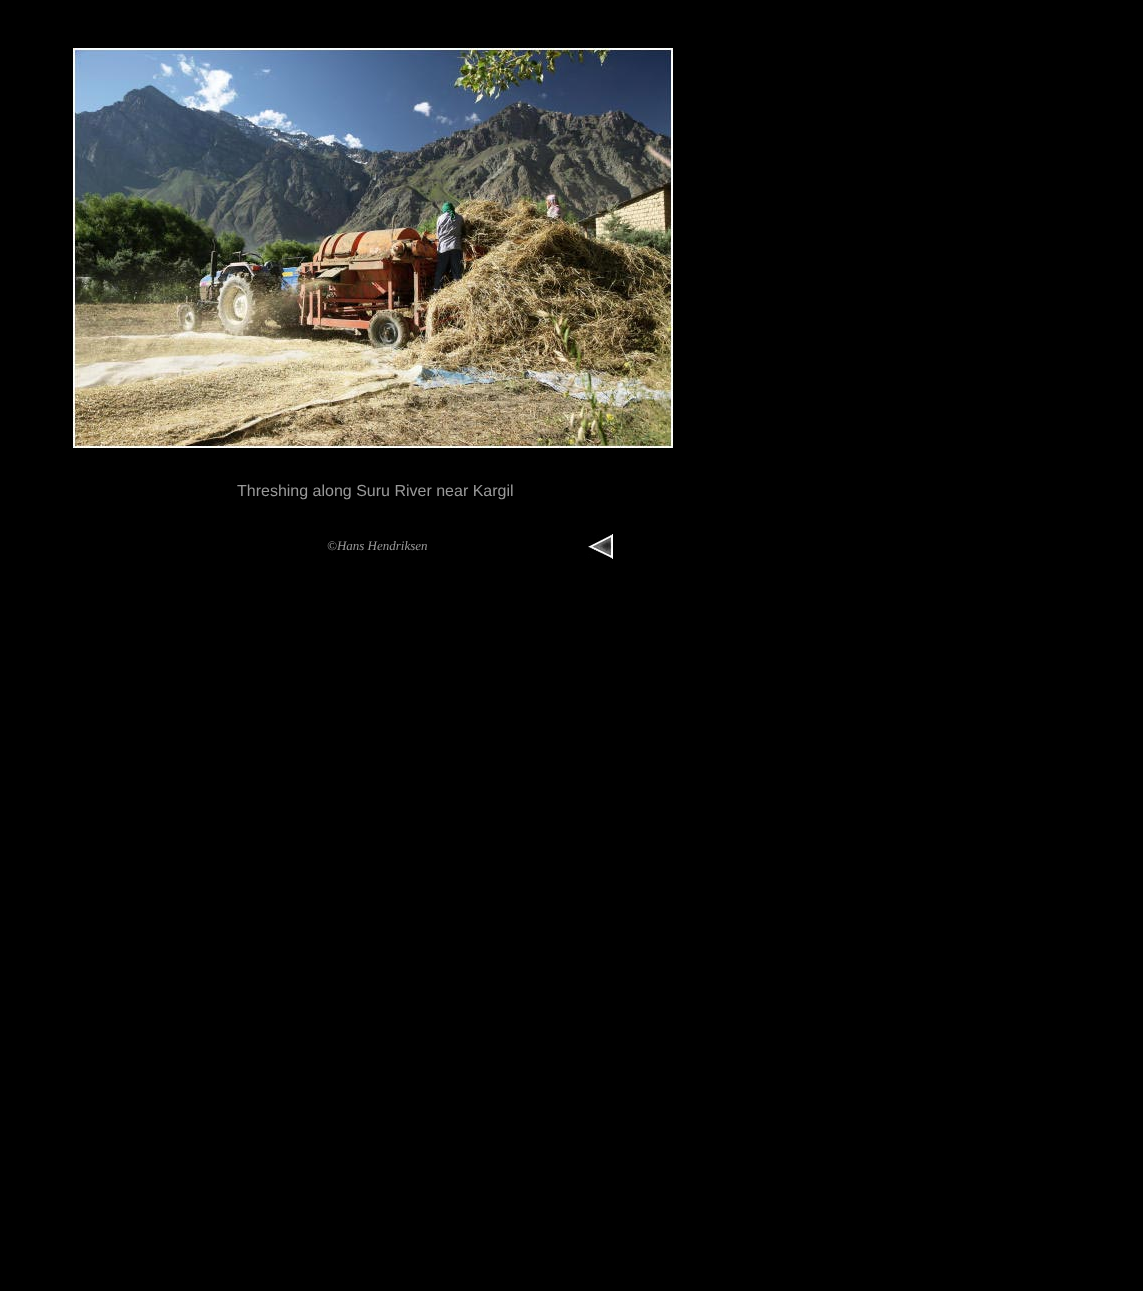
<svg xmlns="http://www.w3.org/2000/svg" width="1143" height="1291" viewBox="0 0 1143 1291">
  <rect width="100%" height="100%" fill="#000000"/>
  <image x="73" y="48" width="600" height="400" href="img1.png"/>
  <text x="237" y="496" font-family="Liberation Sans" font-size="16" fill="#999999">Threshing along Suru River near Kargil</text>
  <text x="327" y="550" font-family="Liberation Serif" font-size="13" font-style="italic" fill="#999999">©Hans Hendriksen</text>
  <image x="588" y="534" width="25" height="25" href="img2.png"/>
</svg>
